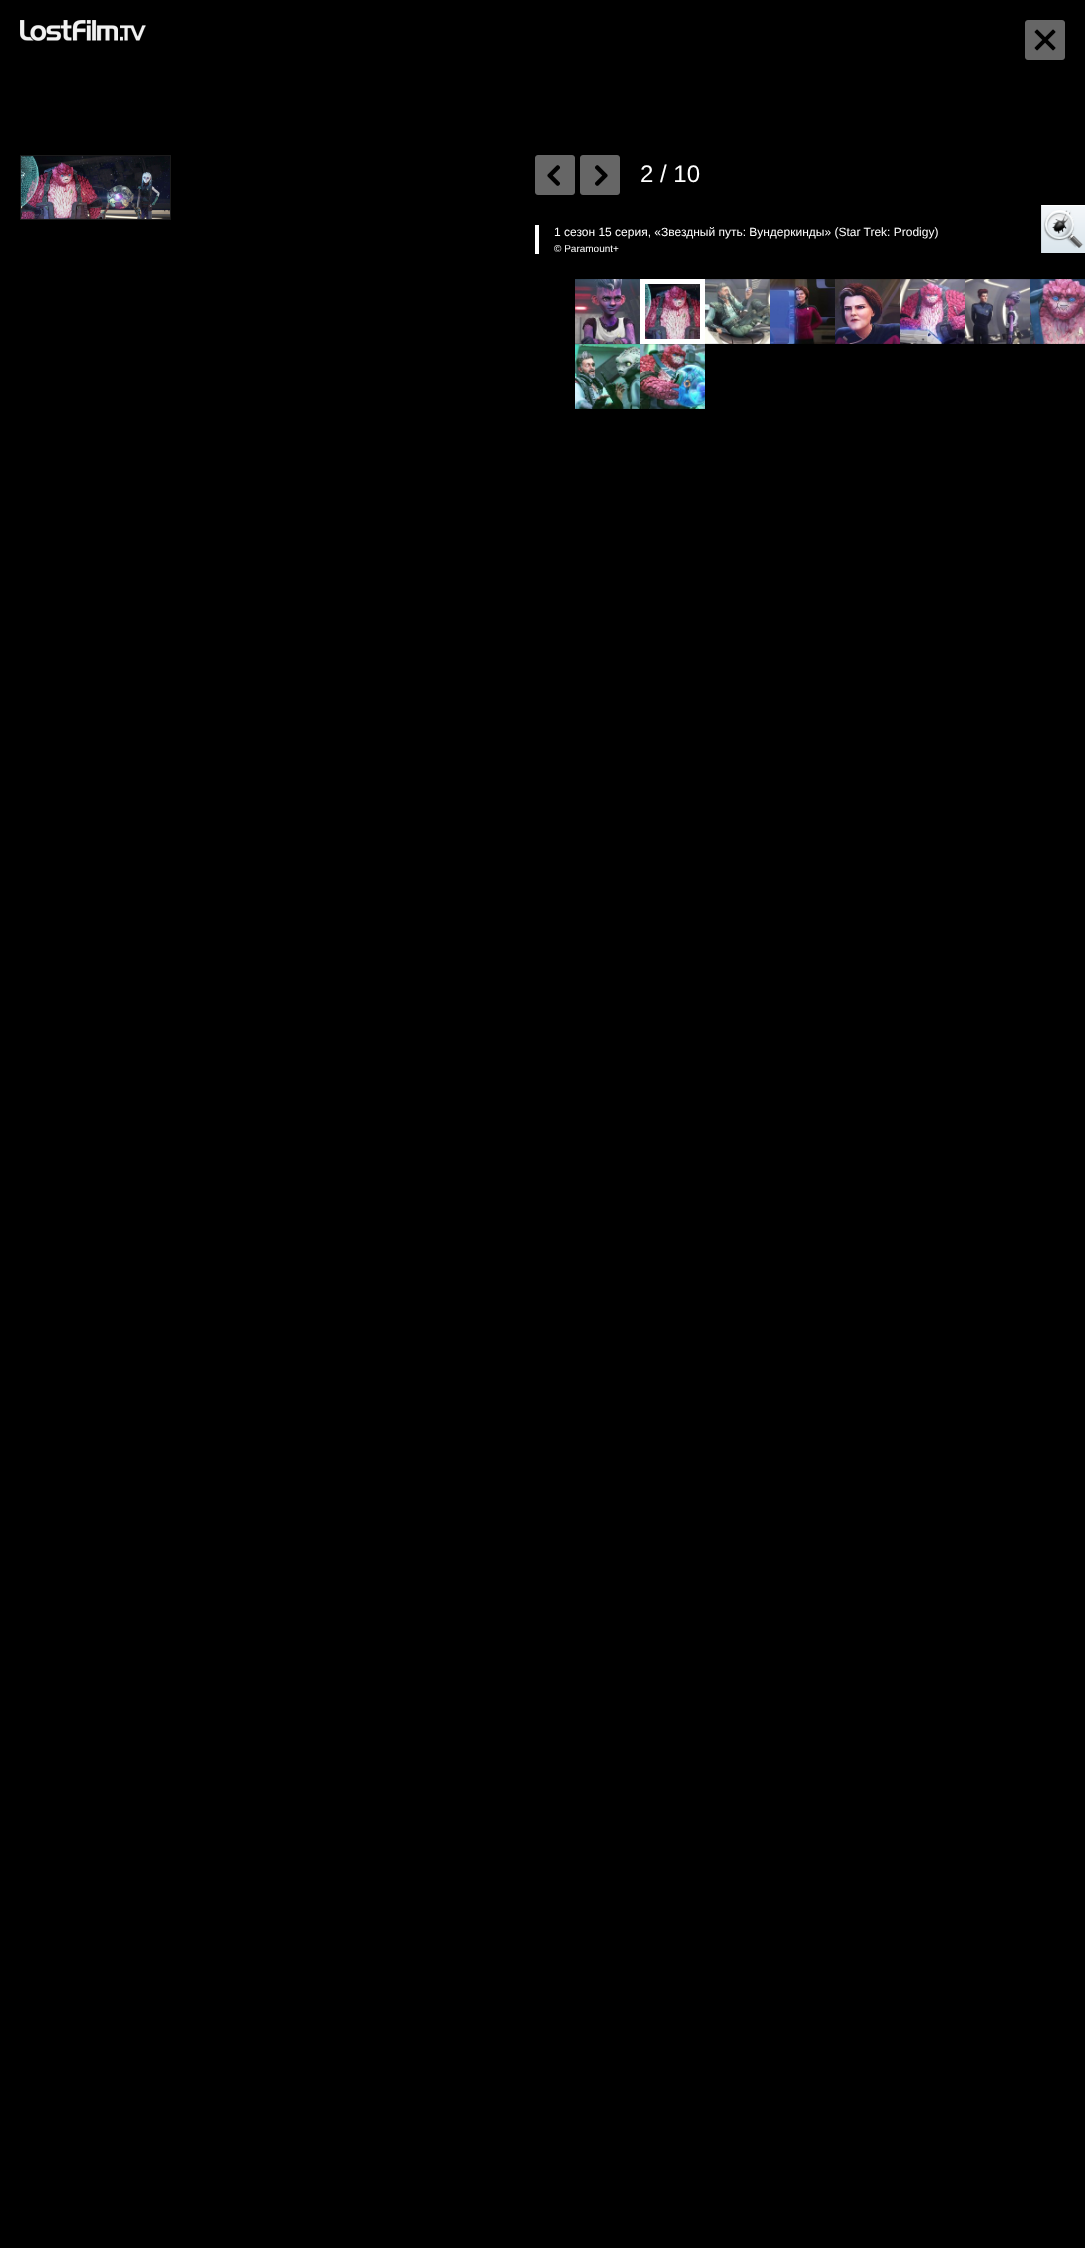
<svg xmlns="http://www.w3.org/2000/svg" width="1085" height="2248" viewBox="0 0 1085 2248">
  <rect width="100%" height="100%" fill="#000000"/>
  <image x="20" y="20" width="126" height="21" href="img1.png"/>
  <image x="1025" y="20" width="40" height="40" href="img2.png"/>
  <image x="21" y="156" width="149" height="63" href="img3.png"/>
  <rect x="20.5" y="155.5" width="150" height="64" fill="none" stroke="#1a1a1a"/>
  <image x="535" y="155" width="40" height="40" href="img4.png"/>
  <image x="580" y="155" width="40" height="40" href="img5.png"/>
  <text x="640" y="182" font-family="Liberation Sans" font-size="24" fill="#ffffff">2 / 10</text>
  <rect x="535" y="225" width="4" height="29" fill="#ffffff"/>
  <text x="554" y="236" font-family="Liberation Sans" font-size="12" fill="#ffffff">1 сезон 15 серия, «Звездный путь: Вундеркинды» (Star Trek: Prodigy)</text>
  <text x="554" y="252" font-family="Liberation Sans" font-size="10" fill="#ffffff">© Paramount+</text>
  <image x="575" y="279" width="65" height="65" href="img6.png"/>
  <image x="645" y="284" width="55" height="55" href="img8.png"/>
  <image x="640" y="279" width="65" height="65" href="img7.png"/>
  <image x="705" y="279" width="65" height="65" href="img9.png"/>
  <image x="770" y="279" width="65" height="65" href="img10.png"/>
  <image x="835" y="279" width="65" height="65" href="img11.png"/>
  <image x="900" y="279" width="65" height="65" href="img12.png"/>
  <image x="965" y="279" width="65" height="65" href="img13.png"/>
  <image x="1030" y="279" width="55" height="65" href="img14.png"/>
  <image x="575" y="344" width="65" height="65" href="img15.png"/>
  <image x="640" y="344" width="65" height="65" href="img16.png"/>
  <image x="1041" y="205" width="44" height="48" href="img17.png"/>
</svg>
